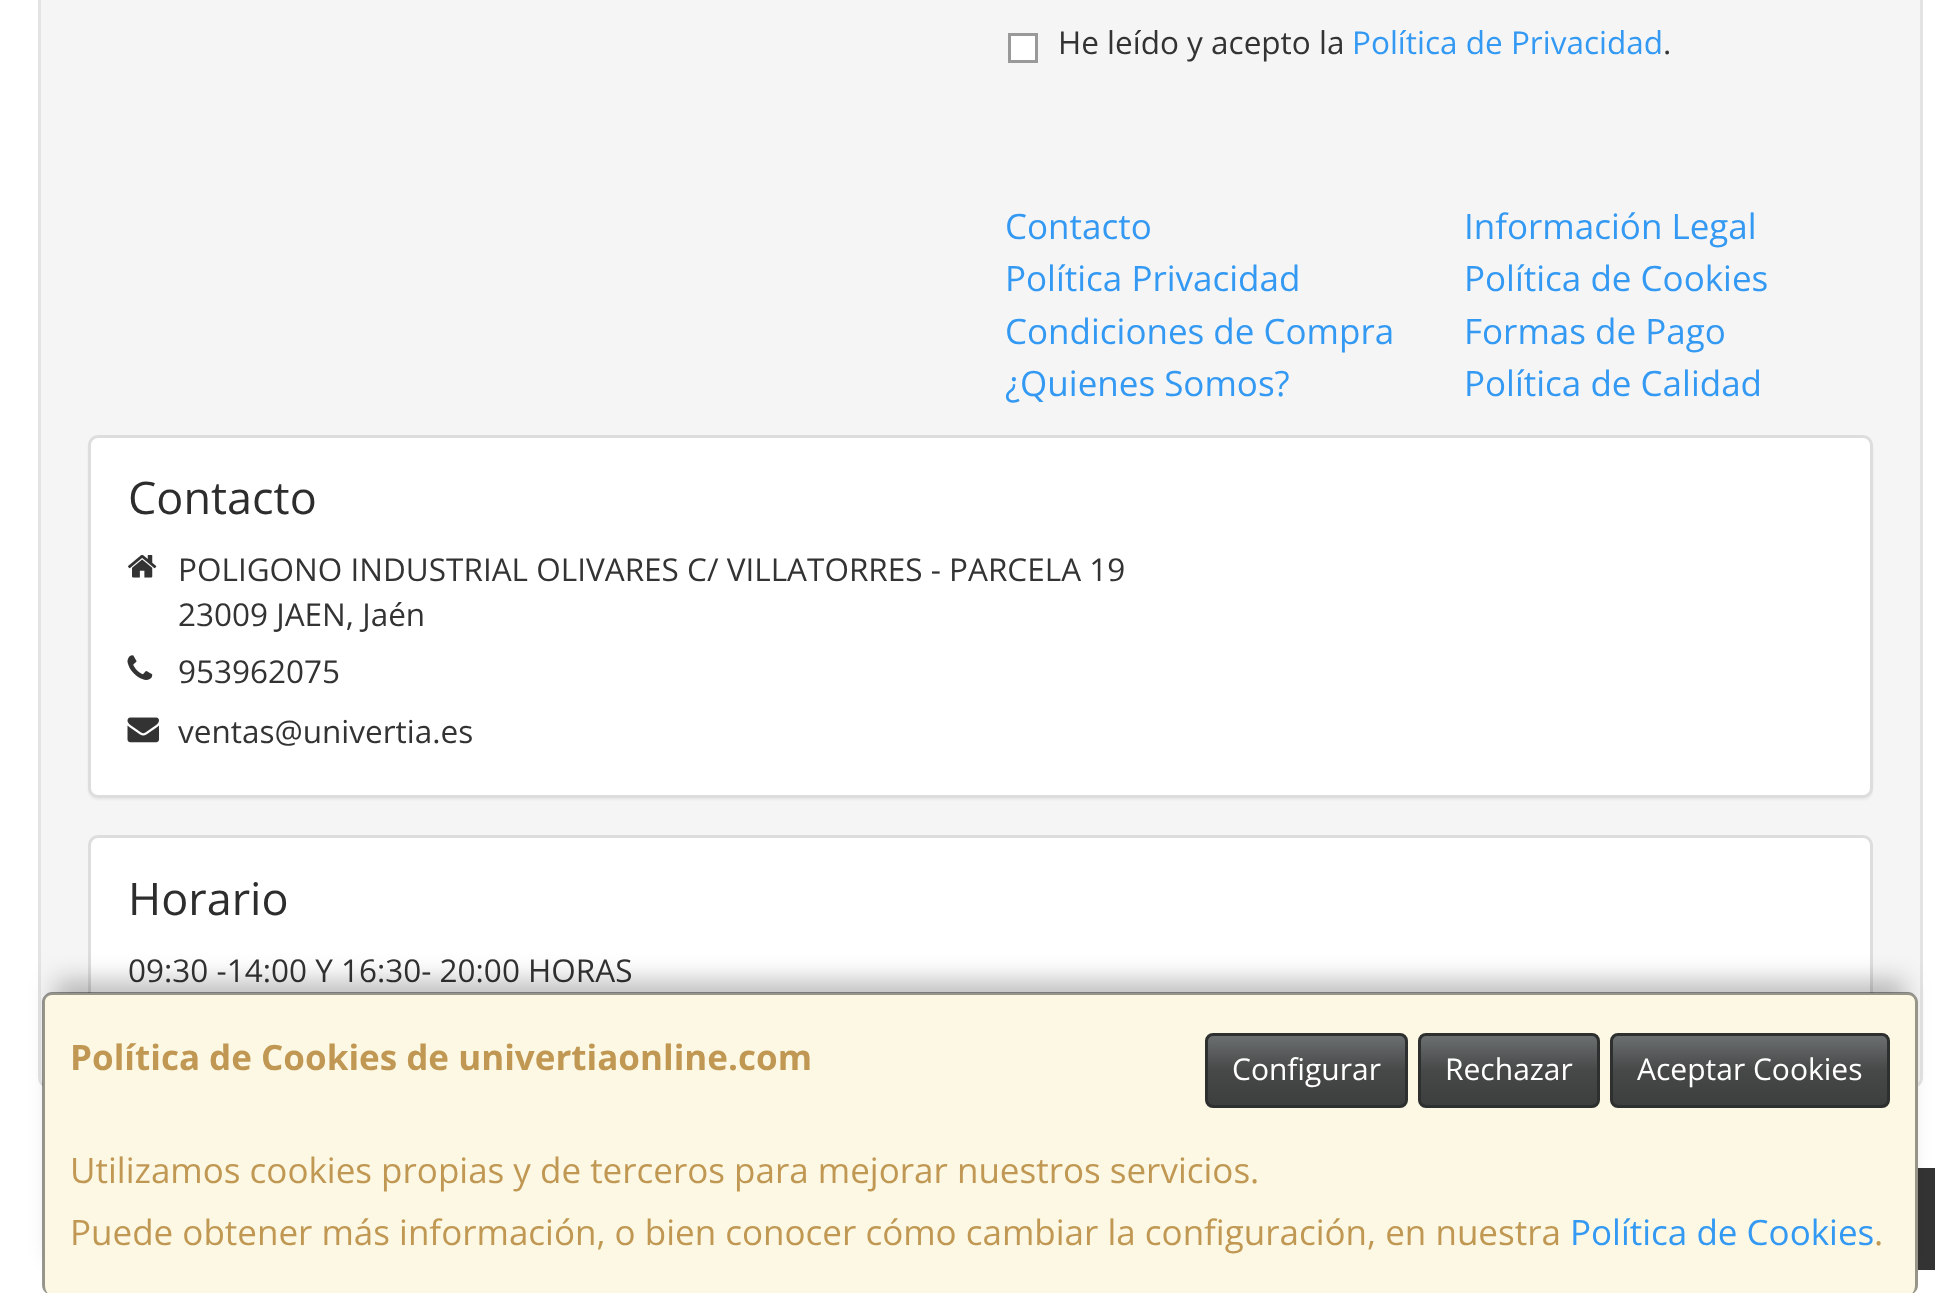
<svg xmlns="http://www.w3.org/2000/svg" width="1960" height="1293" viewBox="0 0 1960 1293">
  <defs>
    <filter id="blur1" x="-50%" y="-200%" width="200%" height="500%"><feGaussianBlur stdDeviation="1"/></filter>
    <filter id="blur2" x="-50%" y="-200%" width="200%" height="500%"><feGaussianBlur stdDeviation="12.5"/></filter>
    <linearGradient id="g1" gradientUnits="userSpaceOnUse" x1="1306" y1="1035" x2="1306" y2="1105"><stop offset="0" stop-color="#6d7070"/><stop offset="0.5" stop-color="#474949"/><stop offset="1" stop-color="#3d3f3f"/></linearGradient>
    <linearGradient id="g2" gradientUnits="userSpaceOnUse" x1="1509" y1="1035" x2="1509" y2="1105"><stop offset="0" stop-color="#6d7070"/><stop offset="0.5" stop-color="#474949"/><stop offset="1" stop-color="#3d3f3f"/></linearGradient>
    <linearGradient id="g3" gradientUnits="userSpaceOnUse" x1="1750" y1="1035" x2="1750" y2="1105"><stop offset="0" stop-color="#6d7070"/><stop offset="0.5" stop-color="#474949"/><stop offset="1" stop-color="#3d3f3f"/></linearGradient>
  </defs>
  <rect width="100%" height="100%" fill="#ffffff"/>
  <rect x="39.5" y="-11.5" width="1882" height="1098" rx="8.5" fill="#f5f5f5" stroke="#e3e3e3" stroke-width="3"/>
  <rect x="1009.5" y="34.5" width="27" height="27" fill="#ffffff" stroke="#999999" stroke-width="3"/>
  <text x="1058" y="54" font-family="Open Sans" font-size="31.5" fill="#333333">He leído y acepto la</text>
  <text x="1352" y="54" font-family="Open Sans" font-size="31.5" fill="#3399f3">Política de Privacidad</text>
  <text x="1663" y="54" font-family="Open Sans" font-size="31.5" fill="#333333">.</text>
  <text x="1005" y="239" font-family="Open Sans" font-size="35" fill="#3399f3">Contacto</text>
  <text x="1464" y="239" font-family="Open Sans" font-size="35" fill="#3399f3">Información Legal</text>
  <text x="1005" y="291" font-family="Open Sans" font-size="35" fill="#3399f3">Política Privacidad</text>
  <text x="1464" y="291" font-family="Open Sans" font-size="35" fill="#3399f3">Política de Cookies</text>
  <text x="1005" y="344" font-family="Open Sans" font-size="35" fill="#3399f3">Condiciones de Compra</text>
  <text x="1464" y="344" font-family="Open Sans" font-size="35" fill="#3399f3">Formas de Pago</text>
  <text x="1005" y="396" font-family="Open Sans" font-size="35" fill="#3399f3">¿Quienes Somos?</text>
  <text x="1464" y="396" font-family="Open Sans" font-size="35" fill="#3399f3">Política de Calidad</text>
  <rect x="88" y="438" width="1785" height="362" rx="10" fill="#000000" fill-opacity="0.05" filter="url(#blur1)"/>
  <rect x="89.5" y="436.5" width="1782" height="360" rx="8.5" fill="#ffffff" stroke="#dddddd" stroke-width="3"/>
  <text x="128" y="514" font-family="Open Sans" font-size="45" fill="#2d2d2d">Contacto</text>
  <image x="128" y="555" width="29" height="23" href="img1.png"/>
  <text x="178" y="581" font-family="Open Sans" font-size="31.5" fill="#333333">POLIGONO INDUSTRIAL OLIVARES C/ VILLATORRES - PARCELA 19</text>
  <text x="178" y="626" font-family="Open Sans" font-size="31.5" fill="#333333">23009 JAEN, Jaén</text>
  <image x="127" y="655" width="26" height="25" href="img2.png"/>
  <text x="178" y="683" font-family="Open Sans" font-size="31.5" fill="#333333">953962075</text>
  <image x="127" y="717" width="32" height="26" href="img3.png"/>
  <text x="178" y="743" font-family="Open Sans" font-size="31.5" fill="#333333">ventas@univertia.es</text>
  <rect x="89.5" y="836.5" width="1782" height="200" rx="8.5" fill="#ffffff" stroke="#dddddd" stroke-width="3"/>
  <text x="128" y="915" font-family="Open Sans" font-size="45" fill="#2d2d2d">Horario</text>
  <text x="128" y="982" font-family="Open Sans" font-size="31.5" fill="#333333">09:30 -14:00 Y 16:30- 20:00 HORAS</text>
  <rect x="1918" y="1168" width="17" height="102" fill="#333333"/>
  <rect x="55" y="980" width="1850" height="278" fill="#000000" fill-opacity="0.25" filter="url(#blur2)"/>
  <rect x="43" y="993" width="1875" height="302" rx="10" fill="#fcf8e3"/>
  <path d="M52 992H1908C1913 992 1918 997 1918 1002V1285C1918 1291 1913 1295 1908 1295H52C47 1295 42 1291 42 1285V1002C42 997 47 992 52 992ZM52 995H1908C1912 995 1915 998 1915 1002V1285C1915 1291 1912 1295 1908 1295H52C48 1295 45 1291 45 1285V1002C45 998 48 995 52 995Z" fill="#000000" fill-opacity="0.4" fill-rule="evenodd"/>
  <text x="70" y="1070" font-family="Open Sans" font-size="35" font-weight="bold" fill="#c09853">Política de Cookies de univertiaonline.com</text>
  <rect x="1208" y="1036" width="197" height="69" fill="url(#g1)"/>
  <rect x="1206.5" y="1034.5" width="200" height="72" rx="6.5" fill="none" stroke="#2e2f2f" stroke-width="3"/>
  <text x="1232" y="1080" font-family="Open Sans" font-size="30" fill="#ffffff">Configurar</text>
  <rect x="1420" y="1035" width="178" height="70" fill="url(#g2)"/>
  <rect x="1419.5" y="1034.5" width="179" height="72" rx="6.5" fill="none" stroke="#2e2f2f" stroke-width="3"/>
  <text x="1445" y="1080" font-family="Open Sans" font-size="30" fill="#ffffff">Rechazar</text>
  <rect x="1613" y="1035" width="275" height="70" fill="url(#g3)"/>
  <rect x="1611.5" y="1034.5" width="277" height="72" rx="6.5" fill="none" stroke="#2e2f2f" stroke-width="3"/>
  <text x="1637" y="1080" font-family="Open Sans" font-size="30" fill="#ffffff">Aceptar Cookies</text>
  <text x="70" y="1183" font-family="Open Sans" font-size="35" fill="#c09853">Utilizamos cookies propias y de terceros para mejorar nuestros servicios.</text>
  <text x="70" y="1245" font-family="Open Sans" font-size="35" fill="#c09853">Puede obtener más información, o bien conocer cómo cambiar la configuración, en nuestra</text>
  <text x="1570" y="1245" font-family="Open Sans" font-size="35" fill="#3399f3">Política de Cookies</text>
  <text x="1874" y="1245" font-family="Open Sans" font-size="35" fill="#c09853">.</text>
</svg>
